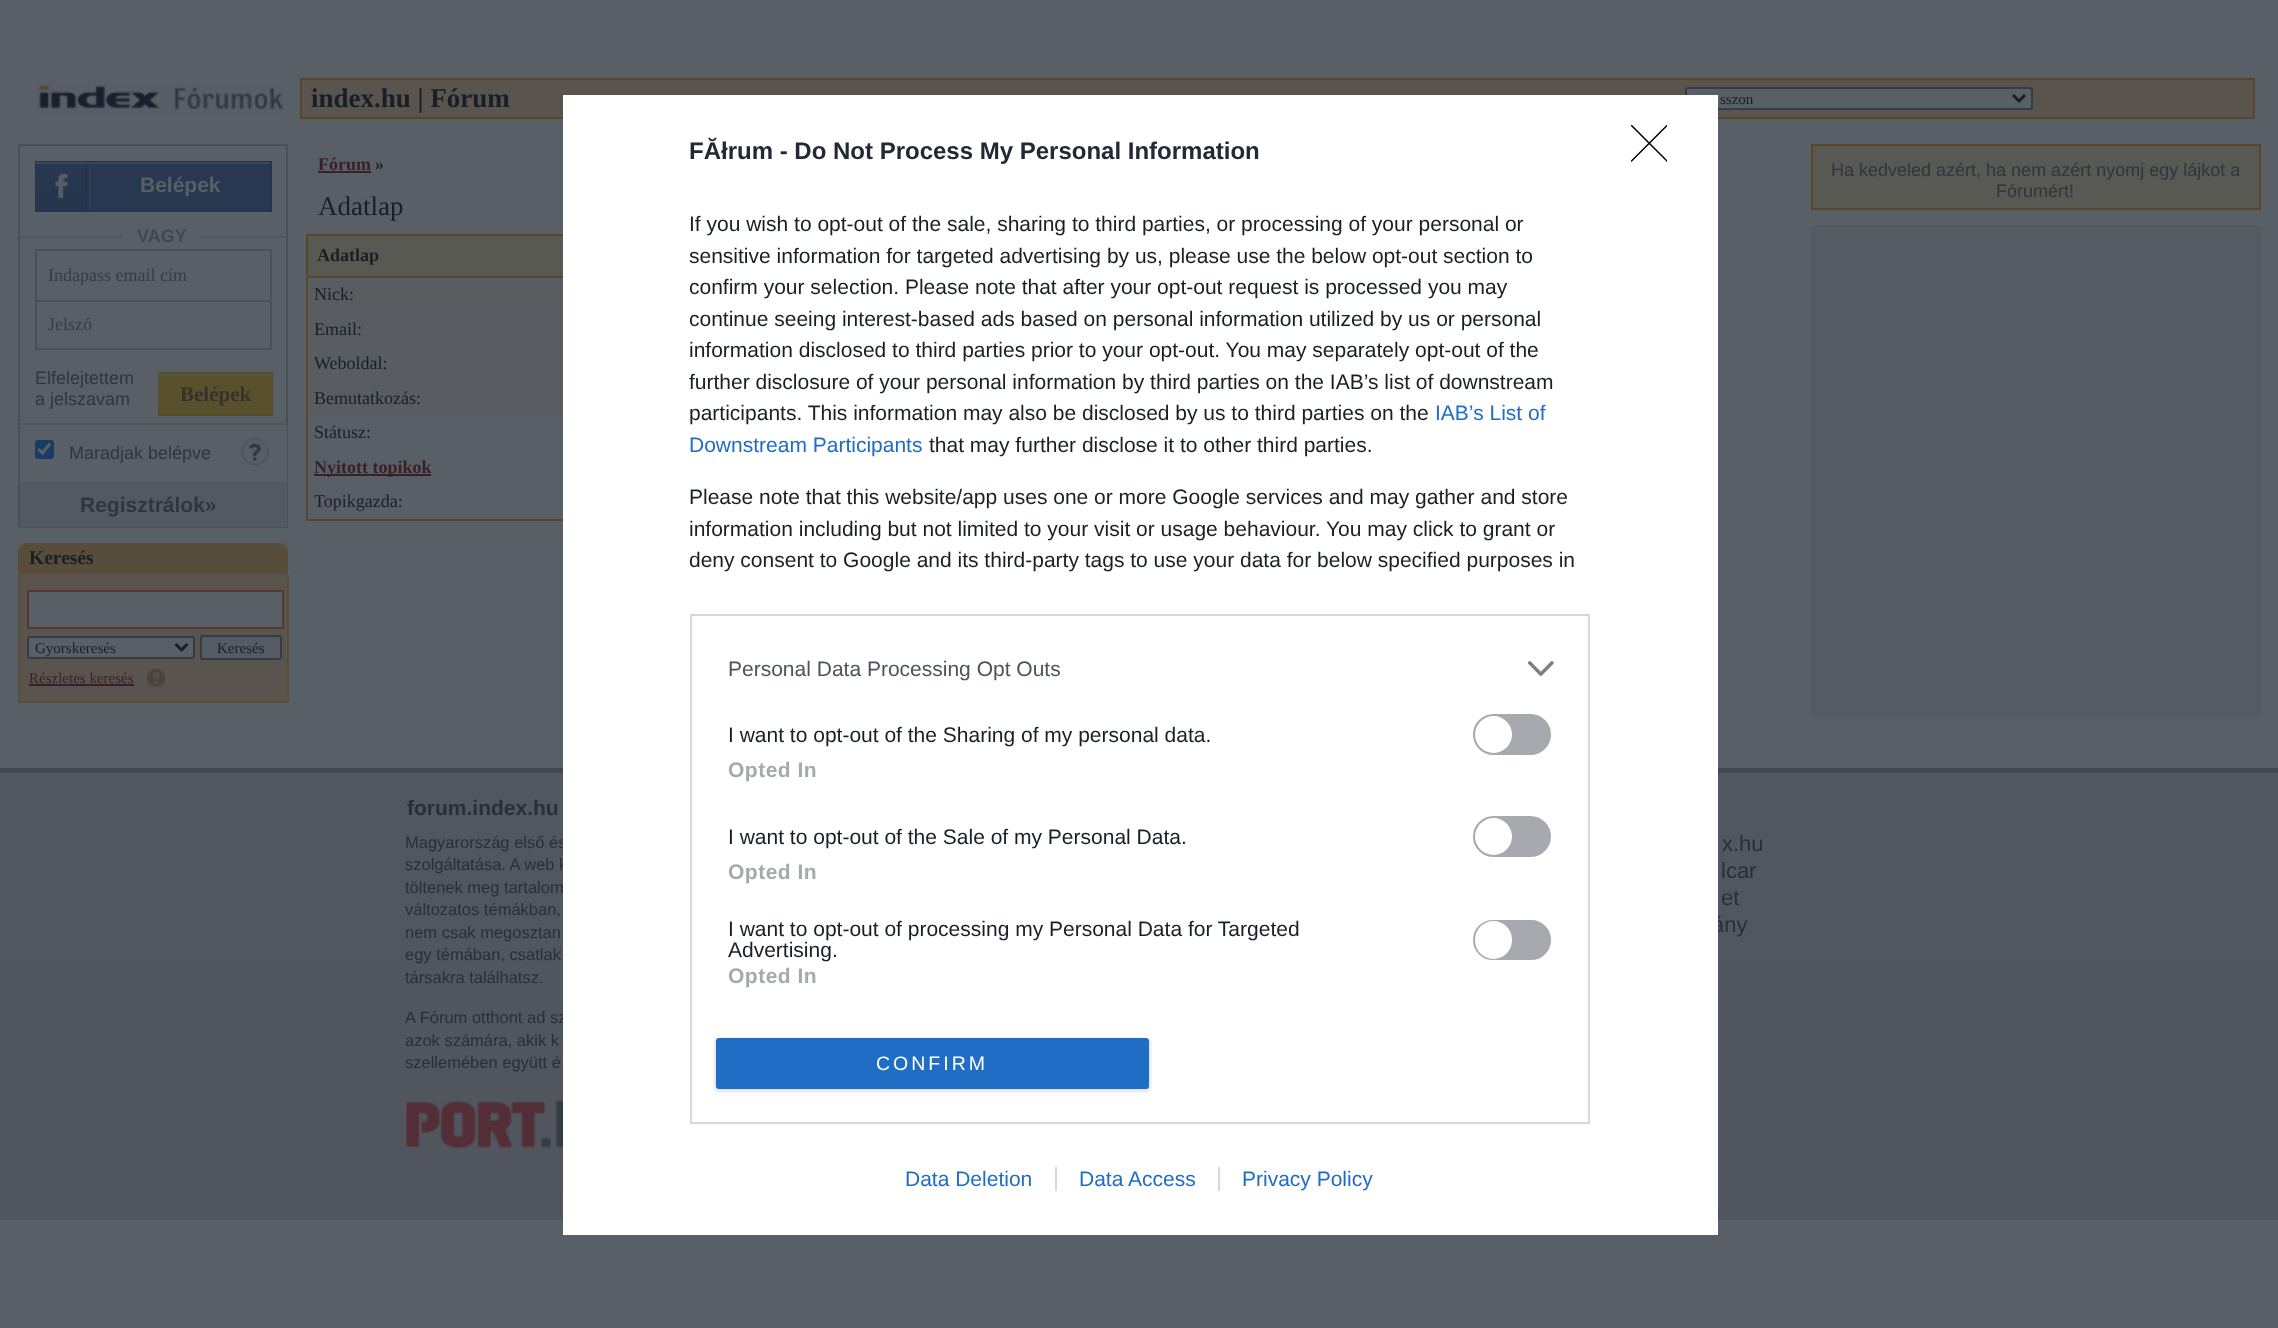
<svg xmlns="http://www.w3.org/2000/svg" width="2278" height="1328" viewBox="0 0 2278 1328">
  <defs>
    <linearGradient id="g1" gradientUnits="userSpaceOnUse" x1="1139" y1="772" x2="1139" y2="1220"><stop offset="0" stop-color="#51575f"/><stop offset="1" stop-color="#51565e"/></linearGradient>
    <filter id="blur1" x="-50%" y="-200%" width="200%" height="500%"><feGaussianBlur stdDeviation="1"/></filter>
    <clipPath id="clip1"><rect x="1631" y="125" width="36" height="37"/></clipPath>
  </defs>
  <rect width="100%" height="100%" fill="#595f67"/>
  <image x="37" y="85" width="247" height="29" href="img1.png"/>
  <rect x="301" y="79" width="1953" height="39" fill="#59544d" stroke="#594527" stroke-width="2"/>
  <text x="311" y="107" font-family="Liberation Serif" font-size="27" font-weight="bold" fill="#191f27">index.hu | Fórum</text>
  <rect x="1686" y="88" width="346" height="21" rx="2" fill="#595f67" stroke="#363c45" stroke-width="2"/>
  <path d="M2013 95L2019 101L2025 95" fill="none" stroke="#191f27" stroke-width="3"/>
  <text x="1720" y="104" font-family="Liberation Serif" font-size="15" fill="#191f27">sszon</text>
  <rect x="19" y="145" width="268" height="382" fill="none" stroke="#4a5058" stroke-width="2"/>
  <rect x="87" y="164" width="183" height="46" fill="#273850"/>
  <rect x="36" y="162" width="235" height="49" fill="none" stroke="#25344c" stroke-width="2"/>
  <image x="36" y="164" width="51" height="46" href="img2.png"/>
  <rect x="36" y="162" width="54" height="2" fill="#3b4557"/>
  <rect x="89" y="162" width="2" height="48" fill="#2b3c52"/>
  <rect x="91" y="162" width="179" height="2" fill="#3b4557"/>
  <text x="140" y="192" font-family="Liberation Sans" font-size="21" font-weight="bold" fill="#585f67">Belépek</text>
  <rect x="20" y="236" width="267" height="2" fill="#50565e"/>
  <rect x="123" y="236" width="78" height="2" fill="#595f67"/>
  <text x="137" y="242" font-family="Liberation Sans" font-size="18" font-weight="bold" fill="#41474f">VAGY</text>
  <rect x="20" y="423" width="267" height="2" fill="#50565e"/>
  <rect x="35" y="249" width="237" height="2" fill="#4a5058"/>
  <rect x="270" y="249" width="2" height="53" fill="#4a5058"/>
  <rect x="35" y="249" width="2" height="53" fill="#4a5058"/>
  <text x="48" y="281" font-family="Liberation Serif" font-size="18" fill="#363c44">Indapass email cím</text>
  <rect x="36" y="301" width="235" height="48" fill="none" stroke="#4a5058" stroke-width="2"/>
  <text x="48" y="330" font-family="Liberation Serif" font-size="18" fill="#363c44">Jelszó</text>
  <text x="35" y="384" font-family="Liberation Sans" font-size="18" fill="#30363f">Elfelejtettem</text>
  <text x="35" y="405" font-family="Liberation Sans" font-size="18" fill="#30363f">a jelszavam</text>
  <rect x="159" y="373" width="113" height="42" fill="none" stroke="#554d2b" stroke-width="2"/>
  <rect x="159" y="376" width="113" height="38" fill="#59502c"/>
  <rect x="159" y="374" width="113" height="2" fill="#595645"/>
  <text x="180" y="401" font-family="Liberation Serif" font-size="21" font-weight="bold" fill="#36332d">Belépek</text>
  <rect x="35" y="440" width="19" height="19" rx="3" fill="#193c67"/>
  <path d="M38.5 449L42.5 453L50 443.5" fill="none" stroke="#595f67" stroke-width="3.1"/>
  <text x="69" y="459" font-family="Liberation Sans" font-size="18" fill="#30363f">Maradjak belépve</text>
  <rect x="286" y="425" width="1" height="57" fill="#595f67"/>
  <image x="241" y="437" width="28" height="28" href="img3.png"/>
  <rect x="20" y="482" width="267" height="45" fill="#535961"/>
  <text x="80" y="512" font-family="Liberation Sans" font-size="21" font-weight="bold" fill="#30363f">Regisztrálok»</text>
  <image x="18" y="543" width="270" height="32" href="img4.png"/>
  <text x="29" y="564" font-family="Liberation Serif" font-size="19.5" font-weight="bold" fill="#191f27">Keresés</text>
  <rect x="20" y="575" width="267" height="126" fill="#59544d"/>
  <rect x="287" y="575" width="2" height="127" fill="#594d3a"/>
  <rect x="18" y="701" width="270" height="2" fill="#594d3a"/>
  <rect x="18" y="575" width="2" height="127" fill="#594d3a"/>
  <rect x="28" y="591" width="255" height="37" fill="#595f67" stroke="#59372f" stroke-width="2"/>
  <rect x="28" y="637" width="166" height="21" rx="2" fill="#595f67" stroke="#363c45" stroke-width="2"/>
  <path d="M175.5 644L181.5 650L187.5 644" fill="none" stroke="#191f27" stroke-width="3"/>
  <text x="35" y="653" font-family="Liberation Serif" font-size="15" fill="#191f27">Gyorskeresés</text>
  <rect x="201" y="636" width="80" height="23" rx="2" fill="#555b63" stroke="#363c45" stroke-width="2"/>
  <text x="217" y="653" font-family="Liberation Serif" font-size="15" fill="#191f27">Keresés</text>
  <text x="29" y="683" font-family="Liberation Serif" font-size="15" fill="#391f27">Részletes keresés</text>
  <rect x="29" y="684" width="105" height="2" fill="#391f27"/>
  <image x="147" y="669" width="18" height="18" href="img5.png"/>
  <text x="318" y="170" font-family="Liberation Serif" font-size="18" font-weight="bold" fill="#391f27">Fórum</text>
  <rect x="318" y="171" width="53" height="2" fill="#391f27"/>
  <text x="375" y="170" font-family="Liberation Serif" font-size="18" font-weight="bold" fill="#191f27">»</text>
  <text x="318" y="215" font-family="Liberation Serif" font-size="27" fill="#191f27">Adatlap</text>
  <rect x="306" y="234" width="257" height="2" fill="#594527"/>
  <rect x="306" y="519" width="257" height="2" fill="#594527"/>
  <rect x="306" y="234" width="2" height="287" fill="#594527"/>
  <rect x="308" y="236" width="255" height="40" fill="#595954"/>
  <rect x="306" y="276" width="257" height="2" fill="#594527"/>
  <text x="317" y="261" font-family="Liberation Serif" font-size="18" font-weight="bold" fill="#191f27">Adatlap</text>
  <rect x="308" y="278" width="255" height="138" fill="#595c60"/>
  <text x="314" y="300" font-family="Liberation Serif" font-size="18" fill="#191f27">Nick:</text>
  <text x="314" y="335" font-family="Liberation Serif" font-size="18" fill="#191f27">Email:</text>
  <text x="314" y="369" font-family="Liberation Serif" font-size="18" fill="#191f27">Weboldal:</text>
  <text x="314" y="404" font-family="Liberation Serif" font-size="18" fill="#191f27">Bemutatkozás:</text>
  <text x="314" y="438" font-family="Liberation Serif" font-size="18" fill="#191f27">Státusz:</text>
  <rect x="314" y="474" width="117" height="2" fill="#391f27"/>
  <text x="314" y="473" font-family="Liberation Serif" font-size="18" font-weight="bold" fill="#391f27">Nyitott topikok</text>
  <text x="314" y="507" font-family="Liberation Serif" font-size="18" fill="#191f27">Topikgazda:</text>
  <rect x="1811" y="225" width="450" height="492" fill="#555b63"/>
  <rect x="1812" y="145" width="448" height="64" fill="#595954" stroke="#594527" stroke-width="2"/>
  <text x="1831" y="176" font-family="Liberation Sans" font-size="18" fill="#30363f">Ha kedveled azért, ha nem azért nyomj egy lájkot a</text>
  <text x="1996" y="197" font-family="Liberation Sans" font-size="18" fill="#30363f">Fórumért!</text>
  <rect x="0" y="773" width="2278" height="447" fill="url(#g1)"/>
  <rect x="0" y="768" width="2278" height="5" fill="#414750"/>
  <text x="405" y="848" font-family="Liberation Sans" font-size="16.5" fill="#292f37">Magyarország első és</text>
  <text x="405" y="870" font-family="Liberation Sans" font-size="16.5" fill="#292f37">szolgáltatása. A web k</text>
  <text x="405" y="893" font-family="Liberation Sans" font-size="16.5" fill="#292f37">töltenek meg tartalom</text>
  <text x="405" y="1023" font-family="Liberation Sans" font-size="16.5" fill="#292f37">A Fórum otthont ad sz</text>
  <text x="1712" y="932" font-family="Liberation Sans" font-size="22" fill="#292f37">ány</text>
  <rect x="563" y="95" width="1155" height="1140" fill="#ffffff"/>
  <text x="689" y="159" font-family="Liberation Sans" font-size="24" font-weight="bold" fill="#212934">FĂłrum - Do Not Process My Personal Information</text>
  <text x="689" y="231" font-family="Liberation Sans" font-size="21" fill="#191f27">If you wish to opt-out of the sale, sharing to third parties, or processing of your personal or</text>
  <text x="689" y="263" font-family="Liberation Sans" font-size="21" fill="#191f27">sensitive information for targeted advertising by us, please use the below opt-out section to</text>
  <text x="689" y="294" font-family="Liberation Sans" font-size="21" fill="#191f27">confirm your selection. Please note that after your opt-out request is processed you may</text>
  <text x="689" y="326" font-family="Liberation Sans" font-size="21" fill="#191f27">continue seeing interest-based ads based on personal information utilized by us or personal</text>
  <text x="689" y="357" font-family="Liberation Sans" font-size="21" fill="#191f27">information disclosed to third parties prior to your opt-out. You may separately opt-out of the</text>
  <text x="689" y="389" font-family="Liberation Sans" font-size="21" fill="#191f27">further disclosure of your personal information by third parties on the IAB’s list of downstream</text>
  <text x="689" y="420" font-family="Liberation Sans" font-size="21" fill="#191f27">participants. This information may also be disclosed by us to third parties on the</text>
  <text x="1435" y="420" font-family="Liberation Sans" font-size="21" fill="#206dc5">IAB’s List of</text>
  <text x="689" y="452" font-family="Liberation Sans" font-size="21" fill="#206dc5">Downstream Participants</text>
  <text x="929" y="452" font-family="Liberation Sans" font-size="21" fill="#191f27">that may further disclose it to other third parties.</text>
  <text x="689" y="504" font-family="Liberation Sans" font-size="21" fill="#191f27">Please note that this website/app uses one or more Google services and may gather and store</text>
  <text x="689" y="536" font-family="Liberation Sans" font-size="21" fill="#191f27">information including but not limited to your visit or usage behaviour. You may click to grant or</text>
  <text x="689" y="567" font-family="Liberation Sans" font-size="21" fill="#191f27">deny consent to Google and its third-party tags to use your data for below specified purposes in</text>
  <rect x="691" y="615" width="898" height="508" fill="none" stroke="#d8d8d8" stroke-width="2"/>
  <text x="728" y="676" font-family="Liberation Sans" font-size="21" fill="#4d545d">Personal Data Processing Opt Outs</text>
  <image x="1527" y="661" width="27" height="15" href="img6.png"/>
  <text x="728" y="742" font-family="Liberation Sans" font-size="21" fill="#191f27">I want to opt-out of the Sharing of my personal data.</text>
  <rect x="1474" y="715" width="76" height="39" rx="19.5" fill="#a6a9ae" stroke="#a6a9ae" stroke-width="2"/>
  <circle cx="1493.5" cy="734.5" r="18.5" fill="#ffffff"/>
  <text x="728" y="777" font-family="Liberation Sans" font-size="21" font-weight="bold" letter-spacing="0.5" fill="#a6a9ae">Opted In</text>
  <text x="728" y="844" font-family="Liberation Sans" font-size="21" fill="#191f27">I want to opt-out of the Sale of my Personal Data.</text>
  <rect x="1474" y="817" width="76" height="39" rx="19.5" fill="#a6a9ae" stroke="#a6a9ae" stroke-width="2"/>
  <circle cx="1493.5" cy="836.5" r="18.5" fill="#ffffff"/>
  <text x="728" y="879" font-family="Liberation Sans" font-size="21" font-weight="bold" letter-spacing="0.5" fill="#a6a9ae">Opted In</text>
  <text x="728" y="936" font-family="Liberation Sans" font-size="21" fill="#191f27">I want to opt-out of processing my Personal Data for Targeted</text>
  <text x="728" y="957" font-family="Liberation Sans" font-size="21" fill="#191f27">Advertising.</text>
  <rect x="1474" y="921" width="76" height="38" rx="19" fill="#a6a9ae" stroke="#a6a9ae" stroke-width="2"/>
  <rect x="1475" y="921" width="37" height="38" rx="18.5" fill="#ffffff"/>
  <text x="728" y="983" font-family="Liberation Sans" font-size="21" font-weight="bold" letter-spacing="0.5" fill="#a6a9ae">Opted In</text>
  <rect x="714" y="1038" width="437" height="54" rx="5" fill="#000000" fill-opacity="0.1" filter="url(#blur1)"/>
  <rect x="716" y="1038" width="433" height="51" rx="3" fill="#206dc5"/>
  <text x="876" y="1070" font-family="Liberation Sans" font-size="19.5" letter-spacing="3" fill="#ffffff">CONFIRM</text>
  <g clip-path="url(#clip1)">
    <path d="M1631.5 125.5L1667 161M1667 125.5L1631.5 161" fill="none" stroke="#000000" stroke-width="1.5" stroke-linecap="round" stroke-linejoin="round"/>
  </g>
  <text x="905" y="1186" font-family="Liberation Sans" font-size="21" fill="#206dc5">Data Deletion</text>
  <text x="1079" y="1186" font-family="Liberation Sans" font-size="21" fill="#206dc5">Data Access</text>
  <rect x="1055" y="1167" width="2" height="24" fill="#d8d8d8"/>
  <text x="1242" y="1186" font-family="Liberation Sans" font-size="21" fill="#206dc5">Privacy Policy</text>
  <rect x="1218" y="1167" width="2" height="24" fill="#d8d8d8"/>
  <text x="407" y="815" font-family="Liberation Sans" font-size="21" font-weight="bold" fill="#292f37">forum.index.hu</text>
  <text x="405" y="915" font-family="Liberation Sans" font-size="16.5" fill="#292f37">változatos témákban,</text>
  <text x="405" y="938" font-family="Liberation Sans" font-size="16.5" fill="#292f37">nem csak megosztan</text>
  <text x="405" y="960" font-family="Liberation Sans" font-size="16.5" fill="#292f37">egy témában, csatlak</text>
  <text x="405" y="983" font-family="Liberation Sans" font-size="16.5" fill="#292f37">társakra találhatsz.</text>
  <text x="405" y="1046" font-family="Liberation Sans" font-size="16.5" fill="#292f37">azok számára, akik k</text>
  <text x="405" y="1068" font-family="Liberation Sans" font-size="16.5" fill="#292f37">szellemében együtt é</text>
  <image x="406" y="1100" width="157" height="48" href="img7.png"/>
  <text x="1722" y="851" font-family="Liberation Sans" font-size="22" fill="#292f37">x.hu</text>
  <text x="1721" y="878" font-family="Liberation Sans" font-size="22" fill="#292f37">lcar</text>
  <text x="1721" y="905" font-family="Liberation Sans" font-size="22" fill="#292f37">et</text>
</svg>
